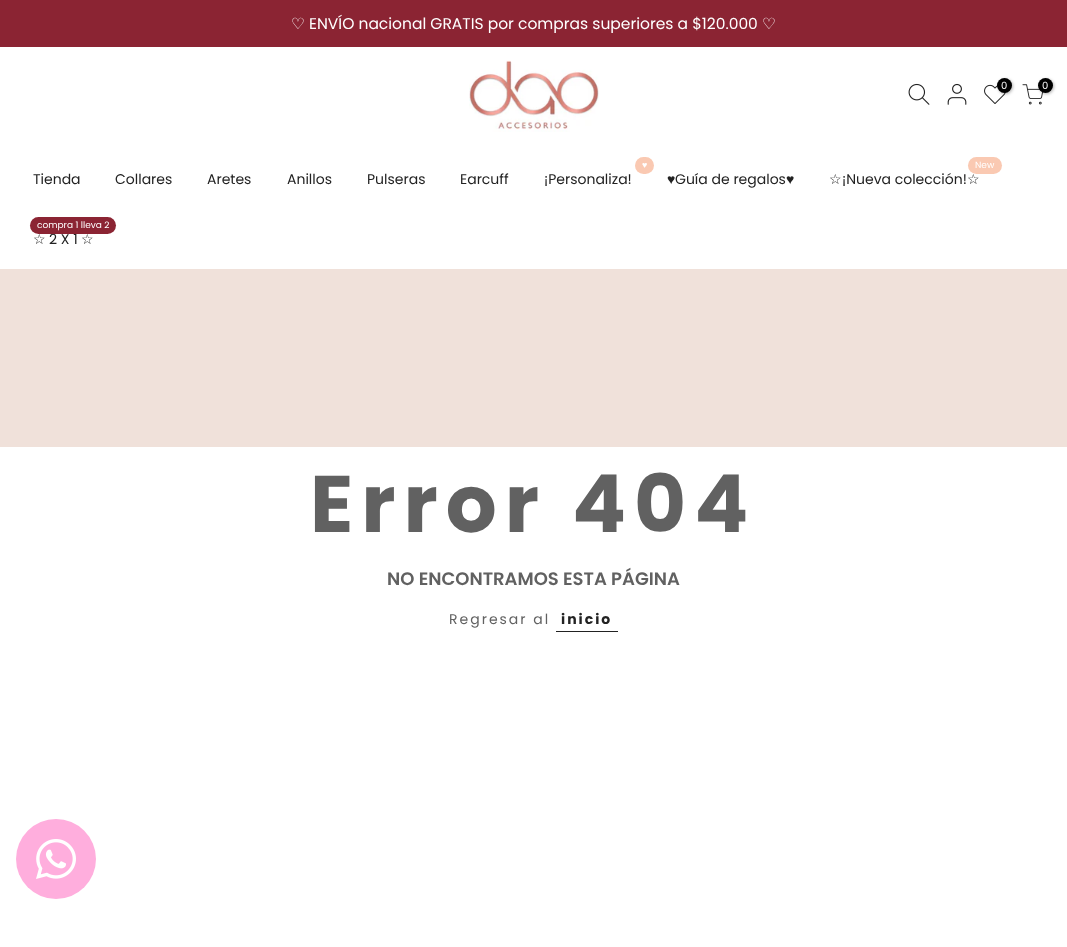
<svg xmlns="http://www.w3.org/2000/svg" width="1067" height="947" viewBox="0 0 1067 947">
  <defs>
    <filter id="blur1" x="-50%" y="-200%" width="200%" height="500%"><feGaussianBlur stdDeviation="1.5"/></filter>
  </defs>
  <rect width="100%" height="100%" fill="#f0e1da"/>
  <rect x="0" y="0" width="1067" height="47" fill="#8b2433"/>
  <text x="291" y="29" font-family="DejaVu Sans" font-size="15.5" fill="#ffffff">♡</text>
  <text x="309" y="29" font-family="Poppins" font-size="15.5" fill="#ffffff">ENVÍO nacional GRATIS por compras superiores a $120.000</text>
  <text x="762" y="29" font-family="DejaVu Sans" font-size="15.5" fill="#ffffff">♡</text>
  <rect x="0" y="47" width="1067" height="222" fill="#ffffff"/>
  <image x="469" y="60" width="130" height="72" href="img1.png"/>
  <image x="908" y="83" width="22" height="22" href="img2.png"/>
  <image x="947" y="83" width="20" height="22" href="img3.png"/>
  <image x="984" y="84" width="22" height="20" href="img4.png"/>
  <rect x="998" y="79" width="15" height="15" rx="7.5" fill="#000000" fill-opacity="0.3" filter="url(#blur1)"/>
  <circle cx="1004.5" cy="85.5" r="7.5" fill="#000000"/>
  <text x="1001" y="89" font-family="Poppins" font-size="10" fill="#ffffff">0</text>
  <image x="1022" y="84" width="21" height="21" href="img5.png"/>
  <rect x="1039" y="79" width="15" height="15" rx="7.5" fill="#000000" fill-opacity="0.3" filter="url(#blur1)"/>
  <circle cx="1045.5" cy="85.5" r="7.5" fill="#000000"/>
  <text x="1042" y="89" font-family="Poppins" font-size="10" fill="#ffffff">0</text>
  <text x="33" y="184" font-family="Poppins" font-size="14" fill="#222222">Tienda</text>
  <text x="115" y="184" font-family="Poppins" font-size="14" fill="#222222">Collares</text>
  <text x="207" y="184" font-family="Poppins" font-size="14" fill="#222222">Aretes</text>
  <text x="287" y="184" font-family="Poppins" font-size="14" fill="#222222">Anillos</text>
  <text x="367" y="184" font-family="Poppins" font-size="14" fill="#222222">Pulseras</text>
  <text x="460" y="184" font-family="Poppins" font-size="14" fill="#222222">Earcuff</text>
  <rect x="635" y="157" width="19" height="17" rx="8.5" fill="#fac9b2"/>
  <text x="642" y="168" font-family="Liberation Serif" font-size="9" fill="#ffffff">♥</text>
  <text x="544" y="184" font-family="Poppins" font-size="14" fill="#222222">¡Personaliza!</text>
  <text x="667" y="184" font-family="Liberation Serif" font-size="14" fill="#222222">♥</text>
  <text x="675" y="184" font-family="Poppins" font-size="14" fill="#222222">Guía de regalos</text>
  <text x="786" y="184" font-family="Liberation Serif" font-size="14" fill="#222222">♥</text>
  <text x="967" y="184" font-family="DejaVu Sans" font-size="14" fill="#222222">☆</text>
  <rect x="968" y="157" width="34" height="17" rx="8.5" fill="#fac9b2"/>
  <text x="975" y="168" font-family="Poppins" font-size="9" fill="#ffffff">New</text>
  <text x="829" y="184" font-family="DejaVu Sans" font-size="14" fill="#222222">☆</text>
  <text x="842" y="184" font-family="Poppins" font-size="14" fill="#222222">¡Nueva colección!</text>
  <text x="33" y="244" font-family="DejaVu Sans" font-size="14" fill="#222222">☆</text>
  <text x="49" y="244" font-family="Poppins" font-size="14" fill="#222222">2 X 1</text>
  <text x="81" y="244" font-family="DejaVu Sans" font-size="14" fill="#222222">☆</text>
  <rect x="30" y="217" width="86" height="17" rx="8.5" fill="#8b2433"/>
  <text x="37" y="228" font-family="Poppins" font-size="9" fill="#ffffff">compra 1 lleva 2</text>
  <rect x="0" y="447" width="1067" height="500" fill="#ffffff"/>
  <text x="310" y="532" font-family="Poppins" font-size="80" font-weight="bold" letter-spacing="8" fill="#616161">Error 404</text>
  <text x="387" y="585" font-family="Poppins" font-size="18" font-weight="600" fill="#616161">NO ENCONTRAMOS ESTA PÁGINA</text>
  <text x="449" y="624" font-family="Poppins" font-size="14" letter-spacing="2" fill="#616161">Regresar al</text>
  <text x="561" y="624" font-family="Poppins" font-size="14" font-weight="bold" letter-spacing="2" fill="#222222">inicio</text>
  <rect x="556" y="631" width="62" height="1" fill="#222222"/>
  <circle cx="56" cy="859" r="40" fill="#ffaedd"/>
  <image x="36" y="839" width="40" height="40" href="img6.png"/>
</svg>
